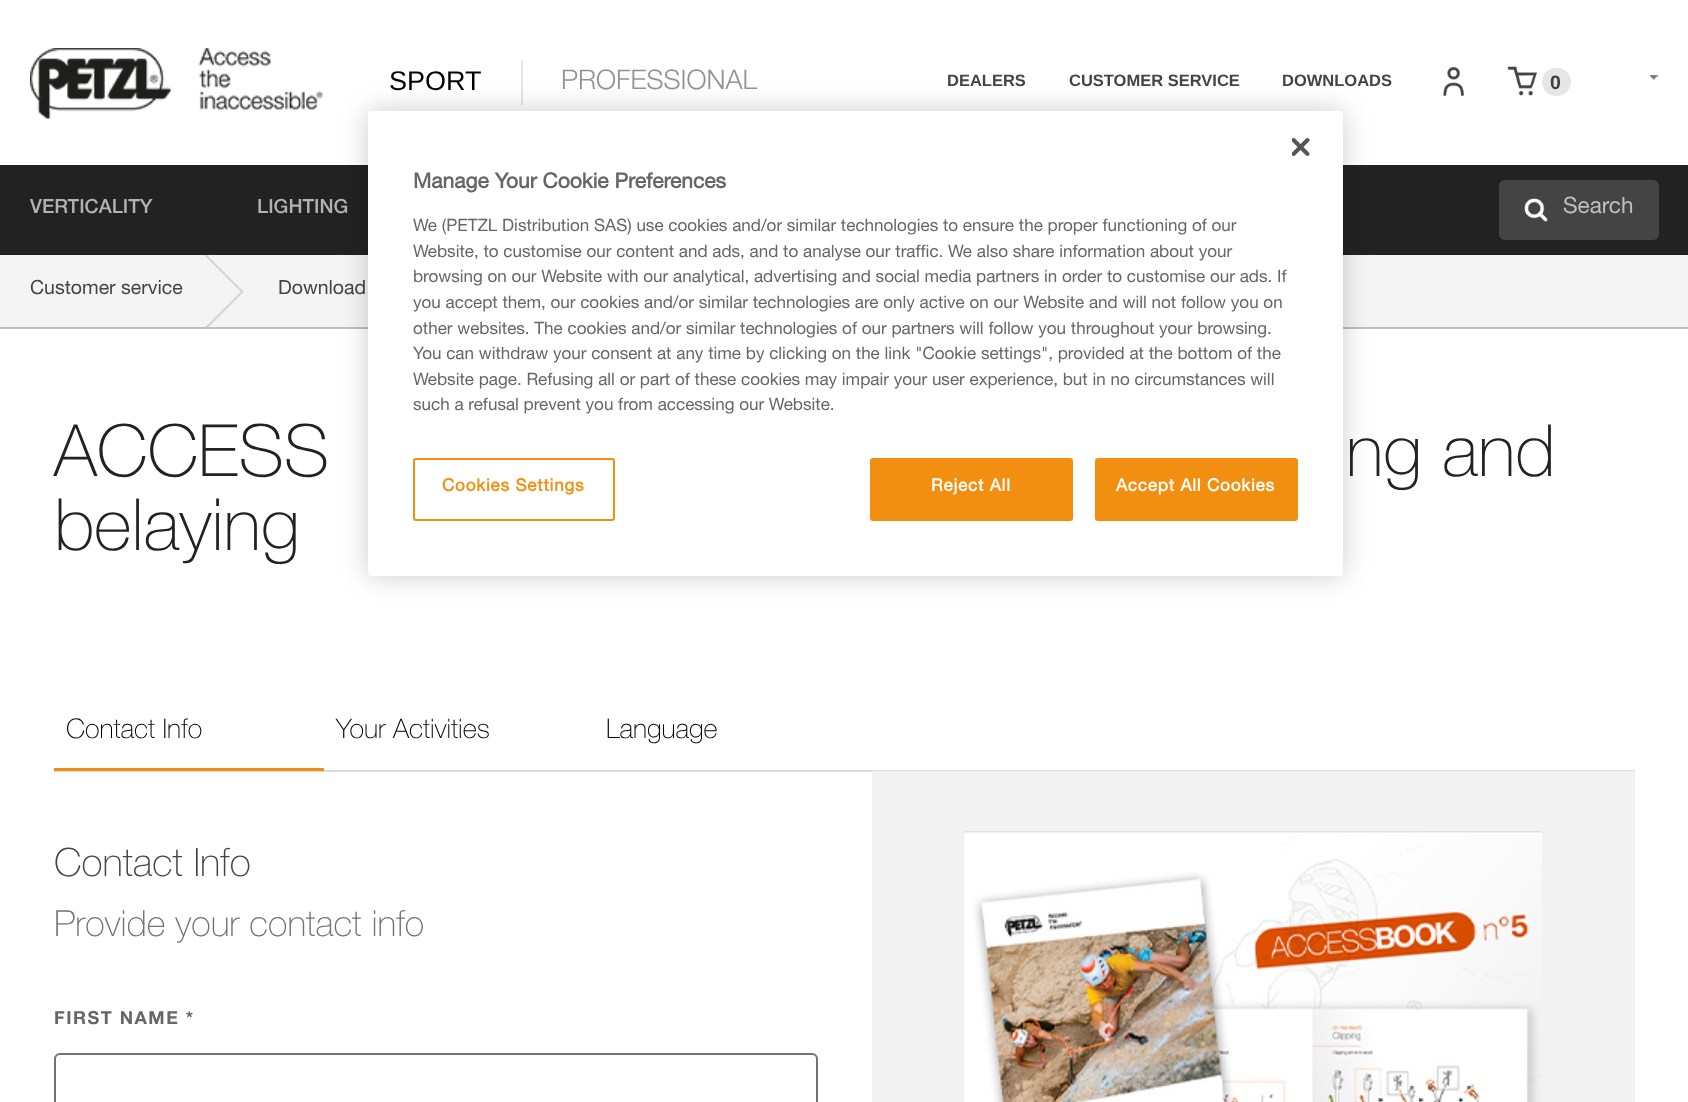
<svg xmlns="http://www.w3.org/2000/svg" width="1688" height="1102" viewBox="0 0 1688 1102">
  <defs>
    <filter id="blur1" x="-50%" y="-200%" width="200%" height="500%"><feGaussianBlur stdDeviation="13.5"/></filter>
  </defs>
  <rect width="100%" height="100%" fill="#ffffff"/>
  <image x="30" y="48" width="293" height="71" href="img1.png"/>
  <text x="389" y="90" font-family="Liberation Sans" font-size="27" fill="#000000">SPORT</text>
  <rect x="521" y="60" width="2" height="45" fill="#e6e6e6"/>
  <text x="561" y="89" font-family="Helvetica Neue" font-size="27" font-weight="300" fill="#939292">PROFESSIONAL</text>
  <text x="947" y="86" font-family="Liberation Sans" font-size="16.5" font-weight="bold" fill="#444444">DEALERS</text>
  <text x="1069" y="86" font-family="Liberation Sans" font-size="16.5" font-weight="bold" fill="#444444">CUSTOMER SERVICE</text>
  <text x="1282" y="86" font-family="Liberation Sans" font-size="16.5" font-weight="bold" fill="#444444">DOWNLOADS</text>
  <image x="1443" y="66" width="21" height="30" href="img2.png"/>
  <image x="1507" y="66" width="31" height="30" href="img3.png"/>
  <rect x="1542" y="68" width="29" height="28" rx="14" fill="#e6e6e6"/>
  <text x="1550" y="89" font-family="Liberation Sans" font-size="19.5" font-weight="bold" fill="#3e3e3e">0</text>
  <image x="1650" y="75" width="9" height="5" href="img4.png"/>
  <rect x="0" y="165" width="1688" height="90" fill="#222222"/>
  <text x="30" y="213" font-family="Helvetica Neue" font-size="19.5" font-weight="500" fill="#b2b2b2">VERTICALITY</text>
  <text x="257" y="213" font-family="Helvetica Neue" font-size="19.5" font-weight="500" fill="#b2b2b2">LIGHTING</text>
  <rect x="1499" y="180" width="160" height="60" rx="6" fill="#444444"/>
  <image x="1524" y="198" width="24" height="24" href="img5.png"/>
  <text x="1563" y="213" font-family="Helvetica Neue" font-size="22.5" fill="#bebebe">Search</text>
  <rect x="0" y="255" width="1688" height="72" fill="#f4f4f4"/>
  <rect x="0" y="327" width="1688" height="2" fill="#bebebe"/>
  <text x="30" y="294" font-family="Helvetica Neue" font-size="19.5" fill="#444444">Customer service</text>
  <image x="205" y="255" width="38" height="72" href="img6.png"/>
  <text x="278" y="294" font-family="Helvetica Neue" font-size="19.5" fill="#444444">Download</text>
  <text x="54" y="476" font-family="Helvetica Neue" font-size="72" font-weight="200" fill="#222222">ACCESS</text>
  <text x="1346" y="476" font-family="Helvetica Neue" font-size="72" font-weight="200" fill="#222222">ng and</text>
  <text x="54" y="550" font-family="Helvetica Neue" font-size="72" font-weight="200" fill="#222222">belaying</text>
  <rect x="54" y="770" width="1581" height="2" fill="#dbdbdb"/>
  <rect x="54" y="768" width="270" height="3" fill="#f38f10"/>
  <text x="66" y="738" font-family="Helvetica Neue" font-size="27" font-weight="200" fill="#000000">Contact Info</text>
  <text x="336" y="738" font-family="Helvetica Neue" font-size="27" font-weight="200" fill="#000000">Your Activities</text>
  <text x="606" y="738" font-family="Helvetica Neue" font-size="27" font-weight="200" fill="#000000">Language</text>
  <text x="54" y="876" font-family="Helvetica Neue" font-size="39" font-weight="200" fill="#444444">Contact Info</text>
  <text x="54" y="936" font-family="Helvetica Neue" font-size="36" font-weight="200" fill="#737373">Provide your contact info</text>
  <text x="54" y="1024" font-family="Helvetica Neue" font-size="18" font-weight="bold" letter-spacing="1.5" fill="#666666">FIRST NAME *</text>
  <rect x="55" y="1054" width="762" height="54" rx="5" fill="none" stroke="#737373" stroke-width="2"/>
  <rect x="872" y="771" width="763" height="331" fill="#f2f2f2"/>
  <image x="964" y="831" width="578" height="271" href="img7.png"/>
  <rect x="368" y="111" width="975" height="465" rx="4" fill="#000000" fill-opacity="0.2" filter="url(#blur1)"/>
  <rect x="368" y="111" width="975" height="465" rx="4" fill="#ffffff"/>
  <image x="1292" y="138" width="18" height="18" href="img8.png"/>
  <text x="413" y="188" font-family="'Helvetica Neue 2'" font-size="21" font-weight="bold" fill="#666666">Manage Your Cookie Preferences</text>
  <text x="413" y="231" font-family="Helvetica Neue" font-size="17.07" fill="#666666">We (PETZL Distribution SAS) use cookies and/or similar technologies to ensure the proper functioning of our</text>
  <text x="413" y="257" font-family="Helvetica Neue" font-size="17.07" fill="#666666">Website, to customise our content and ads, and to analyse our traffic. We also share information about your</text>
  <text x="413" y="282" font-family="Helvetica Neue" font-size="17.07" fill="#666666">browsing on our Website with our analytical, advertising and social media partners in order to customise our ads. If</text>
  <text x="413" y="308" font-family="Helvetica Neue" font-size="17.07" fill="#666666">you accept them, our cookies and/or similar technologies are only active on our Website and will not follow you on</text>
  <text x="413" y="334" font-family="Helvetica Neue" font-size="17.07" fill="#666666">other websites. The cookies and/or similar technologies of our partners will follow you throughout your browsing.</text>
  <text x="413" y="359" font-family="Helvetica Neue" font-size="17.07" fill="#666666">You can withdraw your consent at any time by clicking on the link "Cookie settings", provided at the bottom of the</text>
  <text x="413" y="385" font-family="Helvetica Neue" font-size="17.07" fill="#666666">Website page. Refusing all or part of these cookies may impair your user experience, but in no circumstances will</text>
  <text x="413" y="410" font-family="Helvetica Neue" font-size="17.07" fill="#666666">such a refusal prevent you from accessing our Website.</text>
  <rect x="414" y="459" width="200" height="61" rx="2" fill="none" stroke="#f38f10" stroke-width="2"/>
  <text x="442" y="491" font-family="'Helvetica Neue 2'" font-size="17.07" font-weight="bold" letter-spacing="0.8" fill="#f38f10">Cookies Settings</text>
  <rect x="871" y="459" width="201" height="61" rx="2" fill="#f38f10" stroke="#f38f10" stroke-width="2"/>
  <text x="931" y="491" font-family="'Helvetica Neue 2'" font-size="17.07" font-weight="bold" letter-spacing="0.8" fill="#ffffff">Reject All</text>
  <rect x="1096" y="459" width="201" height="61" rx="2" fill="#f38f10" stroke="#f38f10" stroke-width="2"/>
  <text x="1116" y="491" font-family="'Helvetica Neue 2'" font-size="17.07" font-weight="bold" letter-spacing="0.8" fill="#ffffff">Accept All Cookies</text>
</svg>
